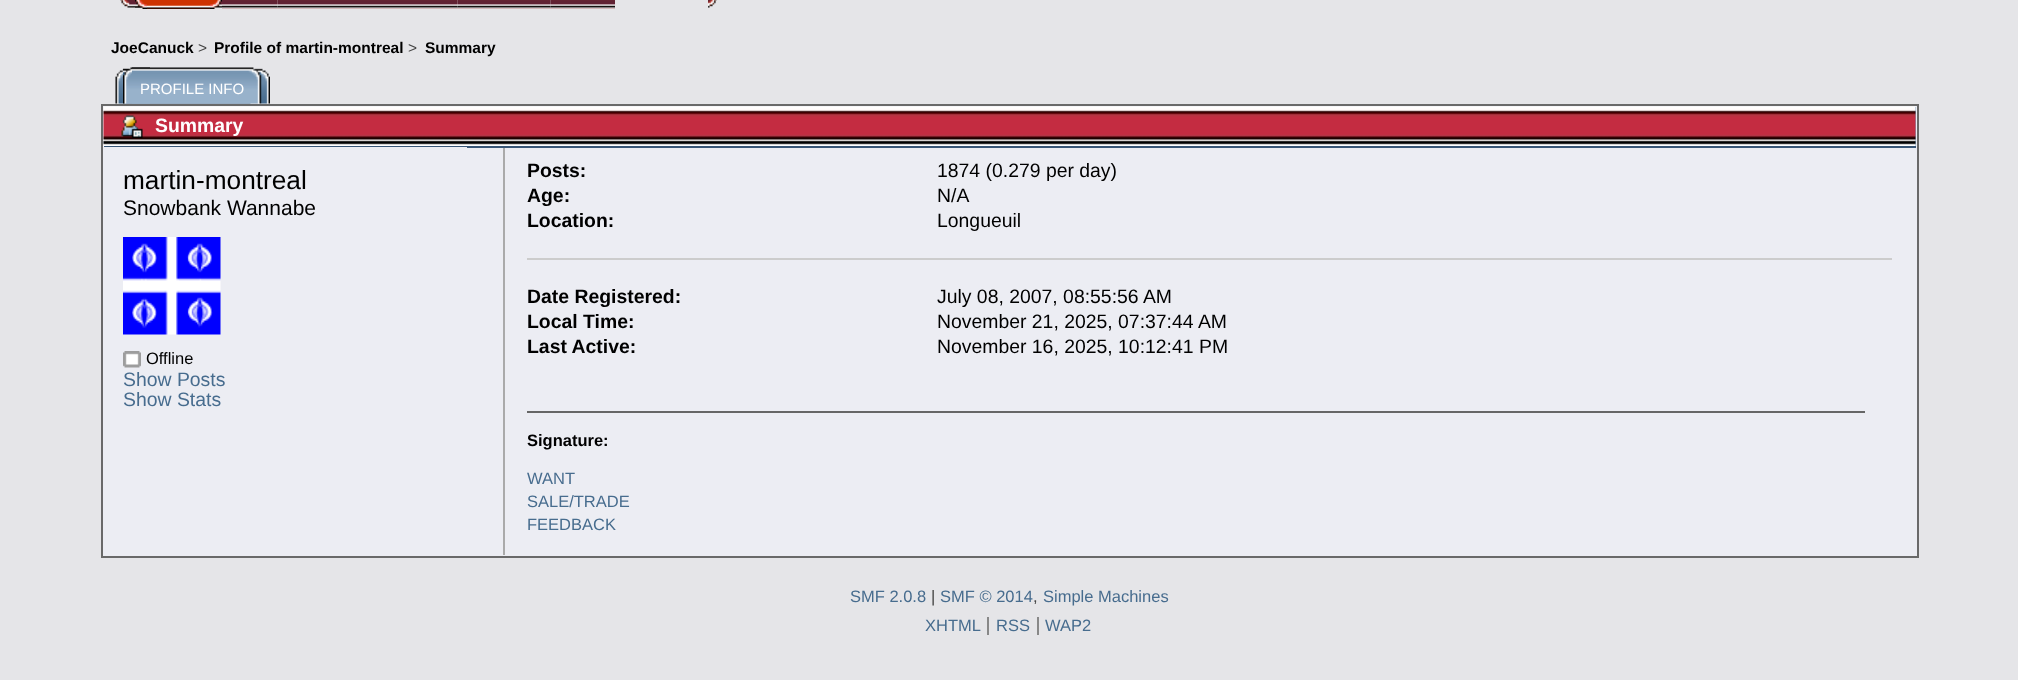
<svg xmlns="http://www.w3.org/2000/svg" width="2018" height="680" viewBox="0 0 2018 680">
  <rect width="100%" height="100%" fill="#e5e5e8"/>
  <image x="120" y="0" width="23" height="8" href="img1.png"/>
  <image x="210" y="0" width="12" height="9" href="img2.png"/>
  <image x="135" y="0" width="12" height="9" href="img3.png"/>
  <image x="147" y="0" width="63" height="9" href="img4.png"/>
  <image x="222" y="0" width="56" height="9" href="img5.png"/>
  <image x="277" y="0" width="80" height="9" href="img6.png"/>
  <image x="357" y="0" width="101" height="9" href="img7.png"/>
  <image x="457" y="0" width="94" height="9" href="img8.png"/>
  <image x="550" y="0" width="65" height="9" href="img9.png"/>
  <image x="708" y="0" width="9" height="8" href="img10.png"/>
  <text x="111" y="53" font-family="Liberation Sans" font-size="15.5" font-weight="bold" fill="#000000">JoeCanuck</text>
  <text x="198" y="53" font-family="Liberation Sans" font-size="15.5" fill="#444444">&gt;</text>
  <text x="214" y="53" font-family="Liberation Sans" font-size="15.5" font-weight="bold" fill="#000000">Profile of martin-montreal</text>
  <text x="408" y="53" font-family="Liberation Sans" font-size="15.5" fill="#444444">&gt;</text>
  <text x="425" y="53" font-family="Liberation Sans" font-size="15.5" font-weight="bold" fill="#000000">Summary</text>
  <image x="115" y="68" width="136" height="36" href="img11.png"/>
  <image x="123" y="67" width="27" height="37" href="img12.png"/>
  <image x="132" y="67" width="138" height="37" href="img13.png"/>
  <text x="140" y="94" font-family="Liberation Sans" font-size="15" fill="#ffffff">PROFILE INFO</text>
  <rect x="102" y="105" width="1816" height="452" fill="#ecedf3" stroke="#696969" stroke-width="2"/>
  <rect x="1915" y="107" width="1" height="39" fill="#88a6c0"/>
  <image x="103" y="106" width="1813" height="41" href="img14.png"/>
  <rect x="503" y="147" width="2" height="408" fill="#aaaaaa"/>
  <rect x="104" y="146" width="1812" height="2" fill="#375576"/>
  <image x="121" y="115" width="22" height="23" href="img15.png"/>
  <text x="155" y="132" font-family="Liberation Sans" font-size="19.4" font-weight="bold" fill="#ffffff">Summary</text>
  <rect x="104" y="147" width="363" height="1" fill="#ecedf3"/>
  <text x="123" y="189" font-family="Liberation Sans" font-size="26.25" fill="#000000">martin-montreal</text>
  <text x="123" y="215" font-family="Liberation Sans" font-size="21" fill="#000000">Snowbank Wannabe</text>
  <image x="123" y="237" width="98" height="98" href="img16.png"/>
  <image x="123" y="351" width="18" height="17" href="img17.png"/>
  <text x="146" y="364" font-family="Liberation Sans" font-size="16.5" fill="#000000">Offline</text>
  <text x="123" y="386" font-family="Liberation Sans" font-size="19.4" fill="#476c8e">Show Posts</text>
  <text x="123" y="406" font-family="Liberation Sans" font-size="19.4" fill="#476c8e">Show Stats</text>
  <rect x="527" y="258" width="1365" height="2" fill="#cccccc"/>
  <text x="527" y="177" font-family="Liberation Sans" font-size="19.4" font-weight="bold" fill="#000000">Posts:</text>
  <text x="937" y="177" font-family="Liberation Sans" font-size="19.4" fill="#000000">1874 (0.279 per day)</text>
  <text x="527" y="202" font-family="Liberation Sans" font-size="19.4" font-weight="bold" fill="#000000">Age:</text>
  <text x="937" y="202" font-family="Liberation Sans" font-size="19.4" fill="#000000">N/A</text>
  <text x="527" y="227" font-family="Liberation Sans" font-size="19.4" font-weight="bold" fill="#000000">Location:</text>
  <text x="937" y="227" font-family="Liberation Sans" font-size="19.4" fill="#000000">Longueuil</text>
  <text x="527" y="303" font-family="Liberation Sans" font-size="19.4" font-weight="bold" fill="#000000">Date Registered:</text>
  <text x="937" y="303" font-family="Liberation Sans" font-size="19.4" fill="#000000">July 08, 2007, 08:55:56 AM</text>
  <text x="527" y="328" font-family="Liberation Sans" font-size="19.4" font-weight="bold" fill="#000000">Local Time:</text>
  <text x="937" y="328" font-family="Liberation Sans" font-size="19.4" fill="#000000">November 21, 2025, 07:37:44 AM</text>
  <text x="527" y="353" font-family="Liberation Sans" font-size="19.4" font-weight="bold" fill="#000000">Last Active:</text>
  <text x="937" y="353" font-family="Liberation Sans" font-size="19.4" fill="#000000">November 16, 2025, 10:12:41 PM</text>
  <rect x="527" y="411" width="1338" height="2" fill="#666666"/>
  <text x="527" y="446" font-family="Liberation Sans" font-size="16.5" font-weight="bold" fill="#000000">Signature:</text>
  <text x="527" y="484" font-family="Liberation Sans" font-size="16.5" fill="#476c8e">WANT</text>
  <text x="527" y="507" font-family="Liberation Sans" font-size="16.5" fill="#476c8e">SALE/TRADE</text>
  <text x="527" y="530" font-family="Liberation Sans" font-size="16.5" fill="#476c8e">FEEDBACK</text>
  <text x="850" y="602" font-family="Liberation Sans" font-size="16.5" fill="#476c8e">SMF 2.0.8</text>
  <text x="931" y="602" font-family="Liberation Sans" font-size="16.5" fill="#444444">|</text>
  <text x="940" y="602" font-family="Liberation Sans" font-size="16.5" fill="#476c8e">SMF © 2014</text>
  <text x="1033" y="602" font-family="Liberation Sans" font-size="16.5" fill="#444444">,</text>
  <text x="1043" y="602" font-family="Liberation Sans" font-size="16.5" fill="#476c8e">Simple Machines</text>
  <text x="925" y="631" font-family="Liberation Sans" font-size="16.5" fill="#476c8e">XHTML</text>
  <rect x="987" y="617" width="2" height="18" fill="#888888"/>
  <text x="996" y="631" font-family="Liberation Sans" font-size="16.5" fill="#476c8e">RSS</text>
  <rect x="1037" y="617" width="2" height="18" fill="#888888"/>
  <text x="1045" y="631" font-family="Liberation Sans" font-size="16.5" fill="#476c8e">WAP2</text>
</svg>
